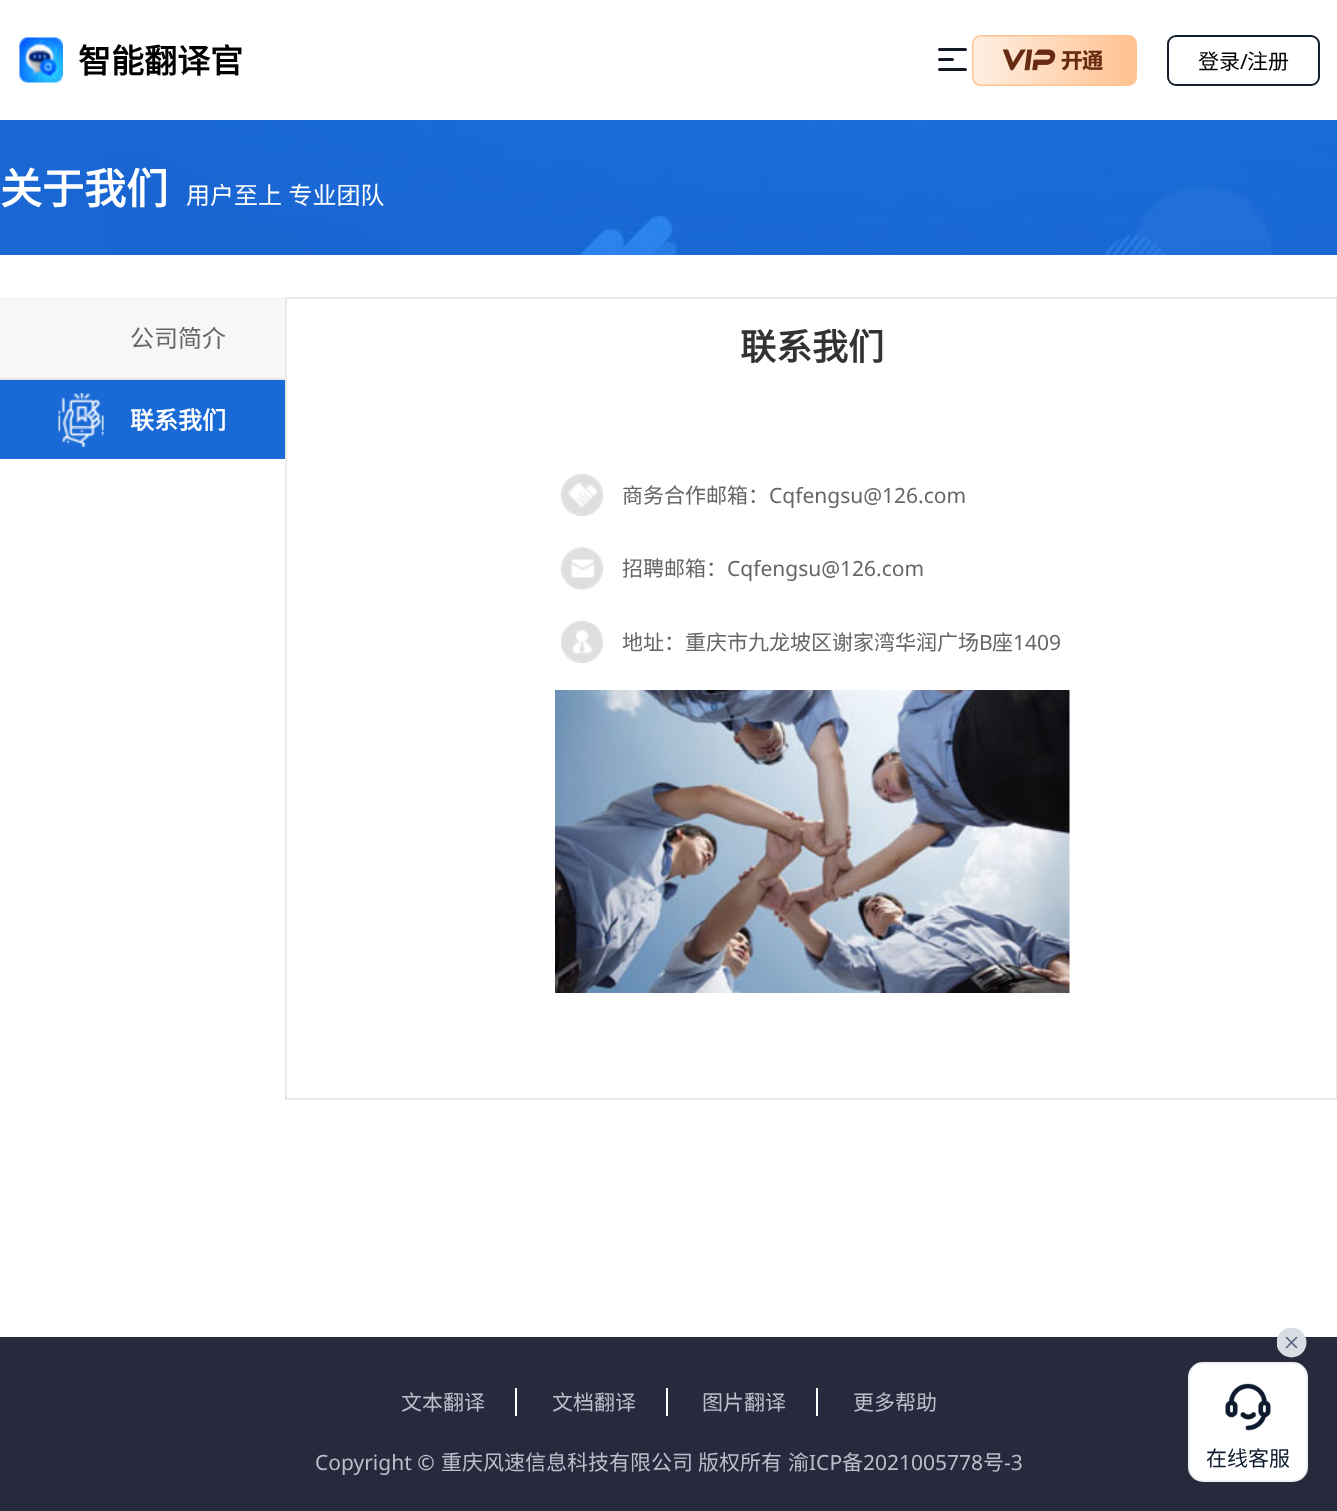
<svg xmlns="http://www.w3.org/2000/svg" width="1337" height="1511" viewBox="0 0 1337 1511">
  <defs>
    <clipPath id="clip1"><rect x="1277" y="1328" width="30" height="30"/></clipPath>
  </defs>
  <rect width="100%" height="100%" fill="#ffffff"/>
  <image x="19" y="37" width="44" height="46" href="img1.png"/>
  <text x="78" y="73" font-family="Noto Sans CJK SC" font-size="33" font-weight="bold" fill="#000000">智能翻译官</text>
  <rect x="938" y="48" width="29" height="3" rx="1.5" fill="#141a22"/>
  <rect x="938" y="58" width="16" height="3" rx="1.5" fill="#141a22"/>
  <rect x="938" y="68" width="29" height="3" rx="1.5" fill="#141a22"/>
  <image x="972" y="35" width="165" height="51" href="img2.png"/>
  <rect x="1168" y="36" width="151" height="49" rx="8" fill="none" stroke="#161f2d" stroke-width="2"/>
  <text x="1198" y="69" font-family="Noto Sans CJK SC" font-size="21" fill="#000000">登录</text>
  <text x="1240" y="69" font-family="Noto Sans" font-size="21" fill="#000000">/</text>
  <text x="1247" y="69" font-family="Noto Sans CJK SC" font-size="21" fill="#000000">注册</text>
  <rect x="0" y="1337" width="1337" height="174" fill="#27293d"/>
  <rect x="1189" y="1363" width="118" height="118" rx="14" fill="#ffffff" stroke="#eef0f4" stroke-width="2"/>
  <g clip-path="url(#clip1)">
    <circle cx="1291.5" cy="1342.5" r="15" fill="#d8dde3"/>
  </g>
  <path d="M1286.5 1337.5L1296.5 1347.5M1296.5 1337.5L1286.5 1347.5" fill="none" stroke="#555c78" stroke-width="1.5" stroke-linecap="round"/>
  <image x="1225" y="1383" width="46" height="48" href="img3.png"/>
  <text x="1206" y="1466" font-family="Noto Sans CJK SC" font-size="21" fill="#0e1b2e">在线客服</text>
  <image x="0" y="120" width="1337" height="135" href="img4.png"/>
  <text x="0" y="204" font-family="Noto Sans CJK SC" font-size="42" font-weight="bold" fill="#ffffff">关于我们</text>
  <text x="186" y="204" word-spacing="1" font-family="Noto Sans CJK SC" font-size="24" fill="#ffffff">用户至上 专业团队</text>
  <rect x="0" y="297" width="285" height="81" fill="#f7f7f7"/>
  <text x="130" y="347" font-family="Noto Sans CJK SC" font-size="24" fill="#666666">公司简介</text>
  <rect x="0" y="380" width="285" height="79" fill="#1969d6"/>
  <rect x="0" y="378" width="285" height="2" fill="#e7e7e7"/>
  <image x="58" y="393" width="46" height="54" href="img5.png"/>
  <text x="130" y="429" font-family="Noto Sans CJK SC" font-size="24" font-weight="bold" fill="#ffffff">联系我们</text>
  <rect x="286" y="298" width="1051" height="801" fill="none" stroke="#e9e9e9" stroke-width="2"/>
  <text x="740" y="360" font-family="Noto Sans CJK SC" font-size="36" font-weight="bold" fill="#333333">联系我们</text>
  <image x="561" y="474" width="42" height="42" href="img6.png"/>
  <text x="622" y="503" font-family="Noto Sans CJK SC" font-size="21" fill="#666666">商务合作邮箱：</text>
  <text x="769" y="503" font-family="Noto Sans" font-size="21" fill="#666666">Cqfengsu@126.com</text>
  <image x="561" y="547" width="42" height="43" href="img7.png"/>
  <text x="622" y="576" font-family="Noto Sans CJK SC" font-size="21" fill="#666666">招聘邮箱：</text>
  <text x="727" y="576" font-family="Noto Sans" font-size="21" fill="#666666">Cqfengsu@126.com</text>
  <image x="561" y="621" width="42" height="42" href="img8.png"/>
  <text x="622" y="650" font-family="Noto Sans CJK SC" font-size="21" fill="#666666">地址：重庆市九龙坡区谢家湾华润广场</text>
  <text x="979" y="650" font-family="Noto Sans" font-size="21" fill="#666666">B</text>
  <text x="992" y="650" font-family="Noto Sans CJK SC" font-size="21" fill="#666666">座</text>
  <text x="1013" y="650" font-family="Noto Sans" font-size="21" fill="#666666">1409</text>
  <image x="555" y="690" width="515" height="303" href="img9.png"/>
  <text x="401" y="1410" font-family="Noto Sans CJK SC" font-size="21" fill="#bdbeca">文本翻译</text>
  <rect x="515" y="1388" width="2" height="28" fill="#ffffff"/>
  <text x="552" y="1410" font-family="Noto Sans CJK SC" font-size="21" fill="#bdbeca">文档翻译</text>
  <rect x="666" y="1388" width="2" height="28" fill="#ffffff"/>
  <text x="702" y="1410" font-family="Noto Sans CJK SC" font-size="21" fill="#bdbeca">图片翻译</text>
  <rect x="816" y="1388" width="2" height="28" fill="#ffffff"/>
  <text x="853" y="1410" font-family="Noto Sans CJK SC" font-size="21" fill="#bdbeca">更多帮助</text>
  <text x="315" y="1470" font-family="Noto Sans" font-size="21" fill="#bdbeca">Copyright ©</text>
  <text x="441" y="1470" font-family="Noto Sans CJK SC" font-size="21" fill="#bdbeca">重庆风速信息科技有限公司</text>
  <text x="698" y="1470" font-family="Noto Sans CJK SC" font-size="21" fill="#bdbeca">版权所有</text>
  <text x="788" y="1470" font-family="Noto Sans CJK SC" font-size="21" fill="#bdbeca">渝</text>
  <text x="809" y="1470" font-family="Noto Sans" font-size="21" fill="#bdbeca">ICP</text>
  <text x="842" y="1470" font-family="Noto Sans CJK SC" font-size="21" fill="#bdbeca">备</text>
  <text x="863" y="1470" font-family="Noto Sans" font-size="21" fill="#bdbeca">2021005778</text>
  <text x="983" y="1470" font-family="Noto Sans CJK SC" font-size="21" fill="#bdbeca">号</text>
  <text x="1004" y="1470" font-family="Noto Sans" font-size="21" fill="#bdbeca">-3</text>
</svg>
